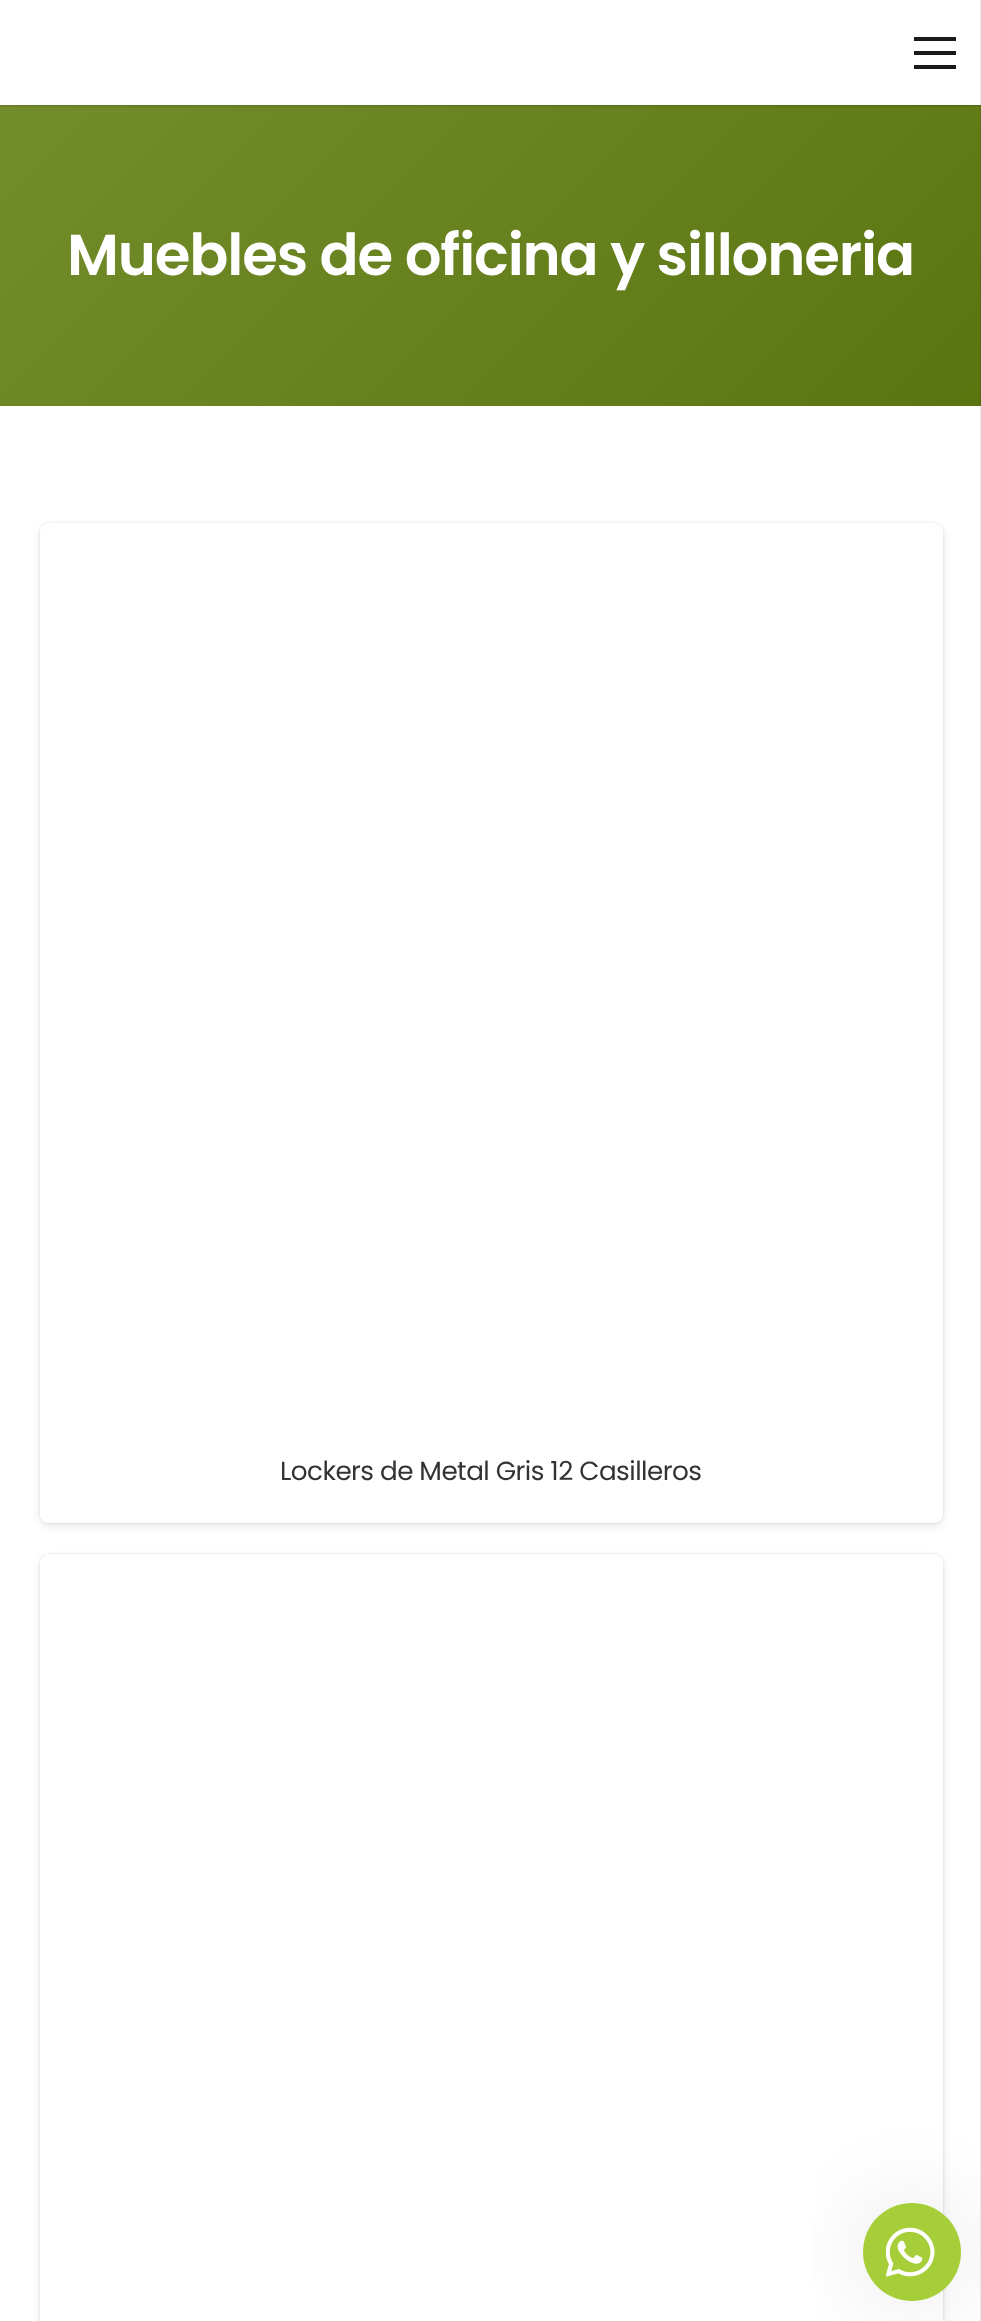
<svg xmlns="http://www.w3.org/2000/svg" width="981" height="2321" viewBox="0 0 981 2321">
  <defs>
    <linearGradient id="g1" gradientUnits="userSpaceOnUse" x1="144" y1="-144" x2="838" y2="550"><stop offset="0" stop-color="#758f2e"/><stop offset="1" stop-color="#5a7510"/></linearGradient>
    <filter id="blur1" x="-50%" y="-200%" width="200%" height="500%"><feGaussianBlur stdDeviation="4"/></filter>
    <filter id="blur2" x="-50%" y="-200%" width="200%" height="500%"><feGaussianBlur stdDeviation="1"/></filter>
    <filter id="blur3" x="-50%" y="-200%" width="200%" height="500%"><feGaussianBlur stdDeviation="44"/></filter>
  </defs>
  <rect width="100%" height="100%" fill="#ffffff"/>
  <rect x="0" y="105" width="981" height="301" fill="url(#g1)"/>
  <path d="M0 105V107H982V2V105Z" fill="#000000" fill-opacity="0.08"/>
  <rect x="914" y="51" width="42" height="4" fill="#1a1a1a"/>
  <rect x="914" y="37" width="42" height="4" fill="#1a1a1a"/>
  <rect x="914" y="65" width="42" height="4" fill="#1a1a1a"/>
  <rect x="980" y="0" width="1" height="2321" fill="#000000" fill-opacity="0.08"/>
  <text x="67" y="275" font-family="Poppins" font-size="57.75" font-weight="600" letter-spacing="-1.15" fill="#ffffff">Muebles de oficina y silloneria</text>
  <rect x="40" y="527" width="903" height="999" rx="9" fill="#000000" fill-opacity="0.1" filter="url(#blur1)"/>
  <rect x="40" y="523" width="903" height="1000" rx="9" fill="#000000" fill-opacity="0.1" filter="url(#blur2)"/>
  <rect x="40" y="523" width="903" height="1000" rx="9" fill="#ffffff"/>
  <path d="M40 1426H943V1514C943 1519 939 1523 934 1523H49C44 1523 40 1519 40 1514Z" fill="#ffffff"/>
  <text x="280" y="1480" font-family="Poppins" font-size="26.25" letter-spacing="-0.55" fill="#333333">Lockers de Metal Gris 12 Casilleros</text>
  <rect x="40" y="1558" width="903" height="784" rx="9" fill="#000000" fill-opacity="0.1" filter="url(#blur1)"/>
  <rect x="40" y="1554" width="903" height="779" rx="9" fill="#000000" fill-opacity="0.1" filter="url(#blur2)"/>
  <rect x="40" y="1554" width="903" height="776" rx="9" fill="#ffffff"/>
  <rect x="863" y="2203" width="98" height="98" rx="49" fill="#000000" fill-opacity="0.1" filter="url(#blur3)"/>
  <circle cx="912" cy="2252" r="49" fill="#a6ce39"/>
  <image x="886" y="2227" width="49" height="50" href="img1.png"/>
</svg>
